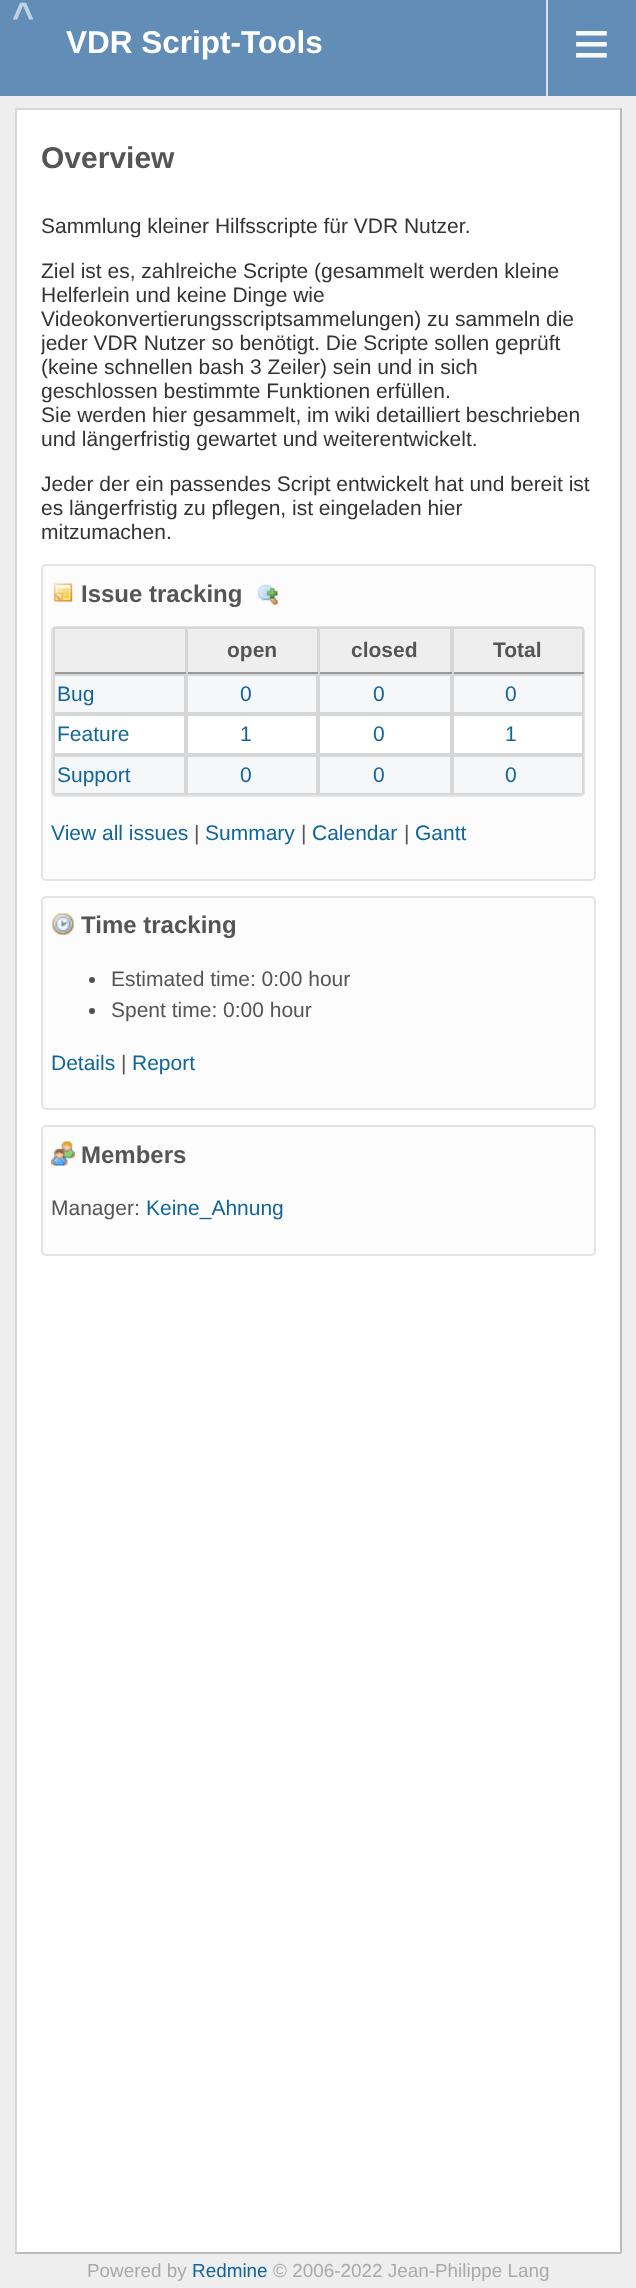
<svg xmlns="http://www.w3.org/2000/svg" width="636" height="2288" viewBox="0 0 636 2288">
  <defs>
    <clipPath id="clip1"><rect x="41" y="192" width="555" height="1079"/></clipPath>
    <clipPath id="clip2"><rect x="53" y="627" width="531" height="168" rx="3"/></clipPath>
  </defs>
  <rect width="100%" height="100%" fill="#eeeeee"/>
  <rect x="0" y="0" width="636" height="96" fill="#628db6"/>
  <text x="12" y="29" font-family="Liberation Sans" font-size="38" font-weight="bold" letter-spacing="6" fill="#c0d1e2">^</text>
  <text x="66" y="53" font-family="Liberation Sans" font-size="31.5" font-weight="bold" fill="#ffffff">VDR Script-Tools</text>
  <rect x="546" y="0" width="2" height="96" fill="#dddddd"/>
  <text x="573" y="65" font-family="Liberation Sans" font-size="63" fill="#f8f8f8">≡</text>
  <rect x="17" y="110" width="603" height="2142" fill="#ffffff"/>
  <rect x="15" y="108" width="606" height="2" fill="#d7d7d7"/>
  <rect x="620" y="108" width="2" height="2145" fill="#bbbbbb"/>
  <rect x="15" y="2252" width="606" height="2" fill="#bbbbbb"/>
  <rect x="15" y="108" width="2" height="2145" fill="#d7d7d7"/>
  <text x="41" y="168" font-family="Liberation Sans" font-size="30" font-weight="bold" fill="#555555">Overview</text>
  <text x="41" y="233" font-family="Liberation Sans" font-size="21" fill="#333333">Sammlung kleiner Hilfsscripte für VDR Nutzer.</text>
  <text x="41" y="278" font-family="Liberation Sans" font-size="21" fill="#333333">Ziel ist es, zahlreiche Scripte (gesammelt werden kleine</text>
  <text x="41" y="302" font-family="Liberation Sans" font-size="21" fill="#333333">Helferlein und keine Dinge wie</text>
  <text x="41" y="326" font-family="Liberation Sans" font-size="21" fill="#333333">Videokonvertierungsscriptsammelungen) zu sammeln die</text>
  <g clip-path="url(#clip1)">
    <text x="41" y="350" font-family="Liberation Sans" font-size="21" fill="#333333">jeder VDR Nutzer so benötigt. Die Scripte sollen geprüft</text>
  </g>
  <text x="41" y="374" font-family="Liberation Sans" font-size="21" fill="#333333">(keine schnellen bash 3 Zeiler) sein und in sich</text>
  <text x="41" y="398" font-family="Liberation Sans" font-size="21" fill="#333333">geschlossen bestimmte Funktionen erfüllen.</text>
  <text x="41" y="422" font-family="Liberation Sans" font-size="21" fill="#333333">Sie werden hier gesammelt, im wiki detailliert beschrieben</text>
  <text x="41" y="446" font-family="Liberation Sans" font-size="21" fill="#333333">und längerfristig gewartet und weiterentwickelt.</text>
  <text x="41" y="491" font-family="Liberation Sans" font-size="21" fill="#333333">Jeder der ein passendes Script entwickelt hat und bereit ist</text>
  <text x="41" y="515" font-family="Liberation Sans" font-size="21" fill="#333333">es längerfristig zu pflegen, ist eingeladen hier</text>
  <text x="41" y="539" font-family="Liberation Sans" font-size="21" fill="#333333">mitzumachen.</text>
  <rect x="42" y="565" width="553" height="315" rx="4" fill="#fcfcfc" stroke="#e4e4e4" stroke-width="2"/>
  <image x="53" y="583" width="20" height="19" href="img1.png"/>
  <text x="81" y="602" font-family="Liberation Sans" font-size="24" font-weight="bold" fill="#555555">Issue tracking</text>
  <image x="257" y="584" width="21" height="22" href="img2.png"/>
  <rect x="52" y="627" width="532" height="169" rx="4" fill="none" stroke="#e4e4e4" stroke-width="2"/>
  <path d="M56 627H186V674H53V630C53 628.5 54.5 627 56 627Z" fill="#eeeeee"/>
  <g clip-path="url(#clip2)">
    <rect x="53" y="627" width="133" height="2" fill="#d7d7d7"/>
  </g>
  <rect x="185" y="627" width="1" height="47" fill="#d7d7d7"/>
  <rect x="53" y="672" width="133" height="2" fill="#999999"/>
  <g clip-path="url(#clip2)">
    <rect x="53" y="627" width="2" height="47" fill="#d7d7d7"/>
  </g>
  <rect x="188" y="629" width="129" height="43" fill="#eeeeee"/>
  <rect x="186" y="627" width="266" height="2" fill="#d7d7d7"/>
  <rect x="317" y="627" width="1" height="47" fill="#d7d7d7"/>
  <rect x="186" y="672" width="132" height="2" fill="#999999"/>
  <rect x="186" y="627" width="2" height="47" fill="#d7d7d7"/>
  <text x="227" y="657" font-family="Liberation Sans" font-size="21" font-weight="bold" fill="#555555">open</text>
  <rect x="320" y="629" width="130" height="43" fill="#eeeeee"/>
  <rect x="450" y="627" width="2" height="47" fill="#d7d7d7"/>
  <rect x="318" y="672" width="134" height="2" fill="#999999"/>
  <rect x="318" y="627" width="2" height="47" fill="#d7d7d7"/>
  <text x="351" y="657" font-family="Liberation Sans" font-size="21" font-weight="bold" fill="#555555">closed</text>
  <path d="M452 627H581C582.5 627 584 628.5 584 630V674H452Z" fill="#eeeeee"/>
  <g clip-path="url(#clip2)">
    <rect x="452" y="627" width="132" height="2" fill="#d7d7d7"/>
    <rect x="582" y="627" width="2" height="47" fill="#d7d7d7"/>
  </g>
  <rect x="452" y="672" width="132" height="2" fill="#999999"/>
  <rect x="452" y="627" width="2" height="47" fill="#d7d7d7"/>
  <text x="493" y="657" font-family="Liberation Sans" font-size="21" font-weight="bold" fill="#555555">Total</text>
  <rect x="55" y="676" width="527" height="36" fill="#f6f7f8"/>
  <rect x="54" y="675" width="131" height="38" fill="none" stroke="#d7d7d7" stroke-width="2"/>
  <text x="57" y="701" font-family="Liberation Sans" font-size="21" fill="#116699">Bug</text>
  <rect x="187" y="675" width="130" height="38" fill="none" stroke="#d7d7d7" stroke-width="2"/>
  <text x="240" y="701" font-family="Liberation Sans" font-size="21" fill="#116699">0</text>
  <rect x="319" y="675" width="132" height="38" fill="none" stroke="#d7d7d7" stroke-width="2"/>
  <text x="373" y="701" font-family="Liberation Sans" font-size="21" fill="#116699">0</text>
  <rect x="453" y="675" width="130" height="38" fill="none" stroke="#d7d7d7" stroke-width="2"/>
  <text x="505" y="701" font-family="Liberation Sans" font-size="21" fill="#116699">0</text>
  <rect x="55" y="716" width="527" height="37" fill="#ffffff"/>
  <rect x="54" y="715" width="131" height="39" fill="none" stroke="#d7d7d7" stroke-width="2"/>
  <text x="57" y="741" font-family="Liberation Sans" font-size="21" fill="#116699">Feature</text>
  <rect x="187" y="715" width="130" height="39" fill="none" stroke="#d7d7d7" stroke-width="2"/>
  <text x="240" y="741" font-family="Liberation Sans" font-size="21" fill="#116699">1</text>
  <rect x="319" y="715" width="132" height="39" fill="none" stroke="#d7d7d7" stroke-width="2"/>
  <text x="373" y="741" font-family="Liberation Sans" font-size="21" fill="#116699">0</text>
  <rect x="453" y="715" width="130" height="39" fill="none" stroke="#d7d7d7" stroke-width="2"/>
  <text x="505" y="741" font-family="Liberation Sans" font-size="21" fill="#116699">1</text>
  <path d="M53 755H584V792C584 793.5 582.5 795 581 795H56C54.5 795 53 793.5 53 792Z" fill="#f6f7f8"/>
  <path d="M53 755V792C53 794 54 795 56 795H186V755ZM55 757V793H184V757Z" fill="#d7d7d7" fill-rule="evenodd"/>
  <text x="57" y="782" font-family="Liberation Sans" font-size="21" fill="#116699">Support</text>
  <rect x="187" y="756" width="130" height="38" fill="none" stroke="#d7d7d7" stroke-width="2"/>
  <text x="240" y="782" font-family="Liberation Sans" font-size="21" fill="#116699">0</text>
  <rect x="319" y="756" width="132" height="38" fill="none" stroke="#d7d7d7" stroke-width="2"/>
  <text x="373" y="782" font-family="Liberation Sans" font-size="21" fill="#116699">0</text>
  <path d="M452 755V795H581C583 795 584 794 584 792V755ZM454 757V793H582V757Z" fill="#d7d7d7" fill-rule="evenodd"/>
  <text x="505" y="782" font-family="Liberation Sans" font-size="21" fill="#116699">0</text>
  <text x="51" y="840" font-family="Liberation Sans" font-size="21" fill="#116699">View all issues</text>
  <text x="194" y="840" font-family="Liberation Sans" font-size="21" fill="#555555">|</text>
  <text x="205" y="840" font-family="Liberation Sans" font-size="21" fill="#116699">Summary</text>
  <text x="301" y="840" font-family="Liberation Sans" font-size="21" fill="#555555">|</text>
  <text x="312" y="840" font-family="Liberation Sans" font-size="21" fill="#116699">Calendar</text>
  <text x="404" y="840" font-family="Liberation Sans" font-size="21" fill="#555555">|</text>
  <text x="415" y="840" font-family="Liberation Sans" font-size="21" fill="#116699">Gantt</text>
  <rect x="42" y="897" width="553" height="212" rx="4" fill="#fcfcfc" stroke="#e4e4e4" stroke-width="2"/>
  <image x="52" y="913" width="22" height="22" href="img3.png"/>
  <text x="81" y="933" font-family="Liberation Sans" font-size="24" font-weight="bold" fill="#555555">Time tracking</text>
  <circle cx="92" cy="980" r="3" fill="#505050"/>
  <text x="111" y="986" font-family="Liberation Sans" font-size="21" fill="#555555">Estimated time: 0:00 hour</text>
  <circle cx="92" cy="1011" r="3" fill="#505050"/>
  <text x="111" y="1017" font-family="Liberation Sans" font-size="21" fill="#555555">Spent time: 0:00 hour</text>
  <text x="51" y="1070" font-family="Liberation Sans" font-size="21" fill="#116699">Details</text>
  <text x="121" y="1070" font-family="Liberation Sans" font-size="21" fill="#555555">|</text>
  <text x="132" y="1070" font-family="Liberation Sans" font-size="21" fill="#116699">Report</text>
  <rect x="42" y="1126" width="553" height="129" rx="4" fill="#fcfcfc" stroke="#e4e4e4" stroke-width="2"/>
  <image x="51" y="1141" width="24" height="25" href="img4.png"/>
  <text x="81" y="1163" font-family="Liberation Sans" font-size="24" font-weight="bold" fill="#555555">Members</text>
  <text x="51" y="1215" font-family="Liberation Sans" font-size="21" fill="#555555">Manager:</text>
  <text x="146" y="1215" font-family="Liberation Sans" font-size="21" fill="#116699">Keine_Ahnung</text>
  <text x="87" y="2277" font-family="Liberation Sans" font-size="18.9" fill="#aaaaaa">Powered by</text>
  <text x="192" y="2277" font-family="Liberation Sans" font-size="18.9" fill="#116699">Redmine</text>
  <text x="273" y="2277" font-family="Liberation Sans" font-size="18.9" fill="#aaaaaa">© 2006-2022 Jean-Philippe Lang</text>
</svg>
